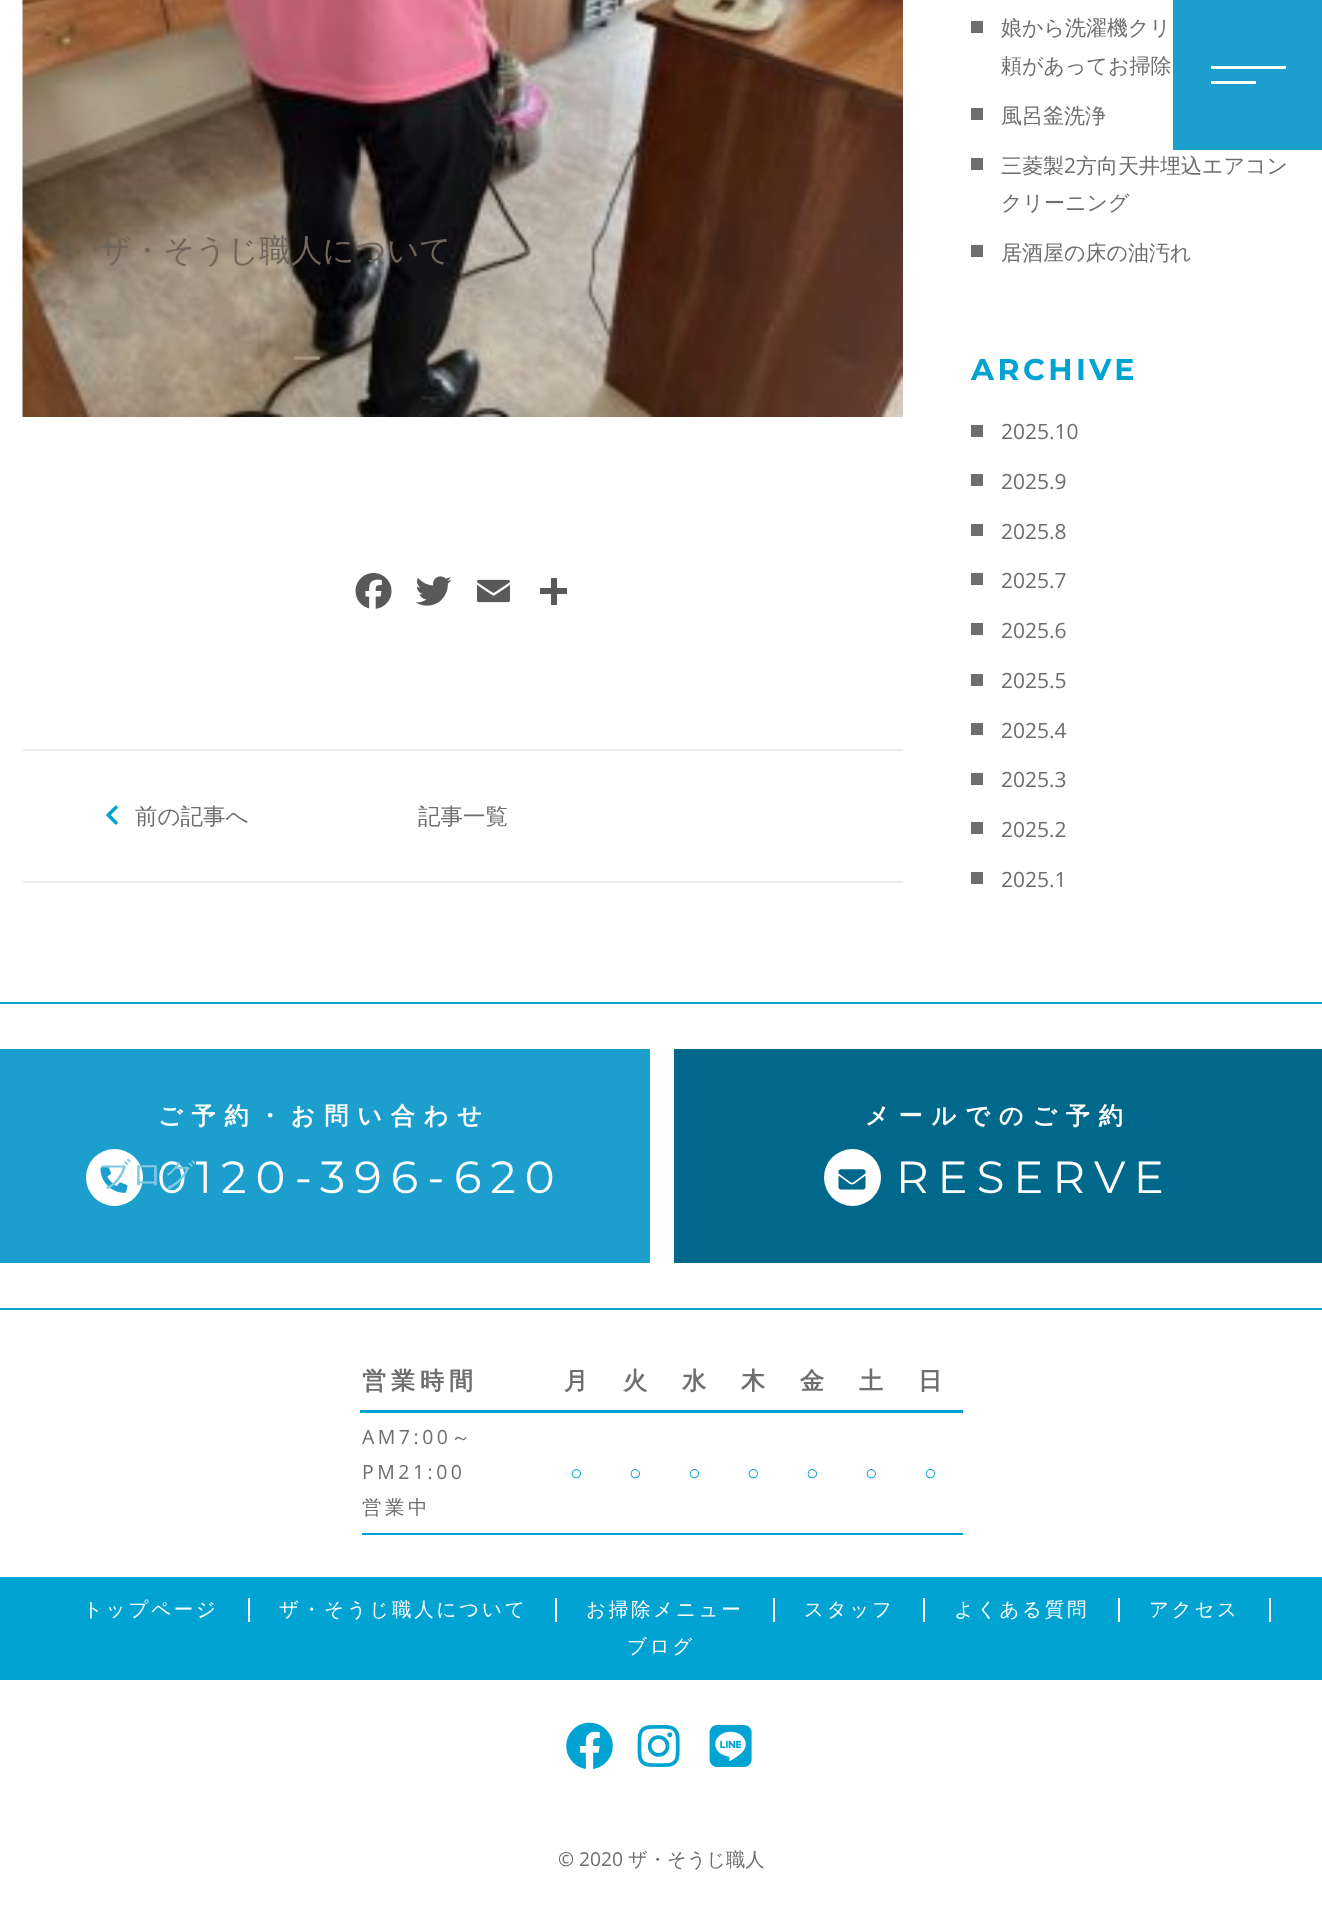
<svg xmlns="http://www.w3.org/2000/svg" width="1322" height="1906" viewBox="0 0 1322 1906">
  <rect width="100%" height="100%" fill="#ffffff"/>
  <rect x="1173" y="0" width="149" height="150" fill="#1c9fcd"/>
  <rect x="1211" y="66" width="75" height="3" fill="#ffffff"/>
  <rect x="1211" y="81" width="45" height="3" fill="#ffffff"/>
  <image x="22" y="0" width="881" height="417" href="img1.png"/>
  <image x="355" y="573" width="37" height="36" href="img2.png"/>
  <image x="415" y="576" width="37" height="30" href="img3.png"/>
  <image x="477" y="579" width="33" height="24" href="img4.png"/>
  <rect x="551" y="578" width="6" height="27" fill="#595959"/>
  <rect x="540" y="588" width="27" height="6" fill="#595959"/>
  <rect x="23" y="749" width="880" height="2" fill="#eaeaea"/>
  <rect x="23" y="881" width="880" height="2" fill="#eaeaea"/>
  <image x="106" y="805" width="12" height="20" href="img5.png"/>
  <text x="135" y="824" font-family="WenQuanYi Zen Hei" font-size="22.5" font-weight="500" fill="#6e6e6e">前の記事へ</text>
  <text x="418" y="824" font-family="WenQuanYi Zen Hei" font-size="22.5" font-weight="500" fill="#6e6e6e">記事一覧</text>
  <rect x="971" y="21" width="12" height="12" fill="#6e6e6e"/>
  <text x="1001" y="35" font-family="WenQuanYi Zen Hei" font-size="21" font-weight="500" fill="#6e6e6e">娘から洗濯機クリ</text>
  <text x="1001" y="73" font-family="WenQuanYi Zen Hei" font-size="21" font-weight="500" fill="#6e6e6e">頼があってお掃除</text>
  <rect x="971" y="108" width="12" height="12" fill="#6e6e6e"/>
  <text x="1001" y="123" font-family="WenQuanYi Zen Hei" font-size="21" font-weight="500" fill="#6e6e6e">風呂釜洗浄</text>
  <rect x="971" y="158" width="12" height="12" fill="#6e6e6e"/>
  <text x="1001" y="173" font-family="WenQuanYi Zen Hei" font-size="21" font-weight="500" fill="#6e6e6e">三菱製</text>
  <text x="1064" y="173" font-family="Open Sans" font-size="21" fill="#6e6e6e">2</text>
  <text x="1076" y="173" font-family="WenQuanYi Zen Hei" font-size="21" font-weight="500" fill="#6e6e6e">方向天井埋込エアコン</text>
  <text x="1001" y="210" font-family="WenQuanYi Zen Hei" font-size="21" font-weight="500" fill="#6e6e6e">クリーニング</text>
  <rect x="971" y="245" width="12" height="12" fill="#6e6e6e"/>
  <text x="1001" y="260" font-family="WenQuanYi Zen Hei" font-size="21" font-weight="500" fill="#6e6e6e">居酒屋の床の油汚れ</text>
  <text x="971" y="380" font-family="Montserrat" font-size="30" font-weight="bold" letter-spacing="3.5" fill="#00a3d2">ARCHIVE</text>
  <rect x="971" y="425" width="12" height="12" fill="#6e6e6e"/>
  <text x="1001" y="439" font-family="Open Sans" font-size="21" fill="#6e6e6e">2025.10</text>
  <rect x="971" y="474" width="12" height="12" fill="#6e6e6e"/>
  <text x="1001" y="489" font-family="Open Sans" font-size="21" fill="#6e6e6e">2025.9</text>
  <rect x="971" y="524" width="12" height="12" fill="#6e6e6e"/>
  <text x="1001" y="539" font-family="Open Sans" font-size="21" fill="#6e6e6e">2025.8</text>
  <rect x="971" y="573" width="12" height="12" fill="#6e6e6e"/>
  <text x="1001" y="588" font-family="Open Sans" font-size="21" fill="#6e6e6e">2025.7</text>
  <rect x="971" y="623" width="12" height="12" fill="#6e6e6e"/>
  <text x="1001" y="638" font-family="Open Sans" font-size="21" fill="#6e6e6e">2025.6</text>
  <rect x="971" y="674" width="12" height="12" fill="#6e6e6e"/>
  <text x="1001" y="688" font-family="Open Sans" font-size="21" fill="#6e6e6e">2025.5</text>
  <rect x="971" y="723" width="12" height="12" fill="#6e6e6e"/>
  <text x="1001" y="738" font-family="Open Sans" font-size="21" fill="#6e6e6e">2025.4</text>
  <rect x="971" y="773" width="12" height="12" fill="#6e6e6e"/>
  <text x="1001" y="787" font-family="Open Sans" font-size="21" fill="#6e6e6e">2025.3</text>
  <rect x="971" y="822" width="12" height="12" fill="#6e6e6e"/>
  <text x="1001" y="837" font-family="Open Sans" font-size="21" fill="#6e6e6e">2025.2</text>
  <rect x="971" y="872" width="12" height="12" fill="#6e6e6e"/>
  <text x="1001" y="887" font-family="Open Sans" font-size="21" fill="#6e6e6e">2025.1</text>
  <text x="99" y="261" font-family="WenQuanYi Zen Hei" font-size="31.5" font-weight="500" fill="#6f655b">ザ・そうじ職人について</text>
  <text x="291" y="370" font-family="WenQuanYi Zen Hei" font-size="31.5" font-weight="500" fill="#a5947f">ー</text>
  <rect x="0" y="1049" width="650" height="214" fill="#1c9fcd"/>
  <circle cx="114.5" cy="1177.5" r="28.5" fill="#ffffff"/>
  <image x="100" y="1165" width="28" height="28" href="img6.png"/>
  <text x="157" y="1193" font-family="Montserrat" font-size="45" letter-spacing="9" fill="#ffffff">0120-396-620</text>
  <text x="99" y="1185" font-family="WenQuanYi Zen Hei" font-size="31.5" font-weight="500" fill="#81cae3">ブログ</text>
  <rect x="0" y="1002" width="1322" height="2" fill="#00a3d2"/>
  <text x="158" y="1124" font-family="WenQuanYi Zen Hei" font-size="24" font-weight="bold" letter-spacing="9" fill="#ffffff">ご予約・お問い合わせ</text>
  <rect x="674" y="1049" width="648" height="214" fill="#00688b"/>
  <text x="865" y="1124" font-family="WenQuanYi Zen Hei" font-size="24" font-weight="bold" letter-spacing="9" fill="#ffffff">メールでのご予約</text>
  <circle cx="852.5" cy="1177.5" r="28.5" fill="#ffffff"/>
  <image x="838" y="1169" width="28" height="21" href="img7.png"/>
  <text x="896" y="1193" font-family="Montserrat" font-size="45" letter-spacing="9" fill="#ffffff">RESERVE</text>
  <rect x="0" y="1308" width="1322" height="2" fill="#00a3d2"/>
  <rect x="360" y="1410" width="603" height="3" fill="#00a3d2"/>
  <text x="362" y="1389" font-family="WenQuanYi Zen Hei" font-size="24" font-weight="bold" letter-spacing="5" fill="#6e6e6e">営業時間</text>
  <text x="564" y="1389" font-family="WenQuanYi Zen Hei" font-size="24" font-weight="bold" letter-spacing="5" fill="#6e6e6e">月</text>
  <text x="623" y="1389" font-family="WenQuanYi Zen Hei" font-size="24" font-weight="bold" letter-spacing="5" fill="#6e6e6e">火</text>
  <text x="682" y="1389" font-family="WenQuanYi Zen Hei" font-size="24" font-weight="bold" letter-spacing="5" fill="#6e6e6e">水</text>
  <text x="741" y="1389" font-family="WenQuanYi Zen Hei" font-size="24" font-weight="bold" letter-spacing="5" fill="#6e6e6e">木</text>
  <text x="800" y="1389" font-family="WenQuanYi Zen Hei" font-size="24" font-weight="bold" letter-spacing="5" fill="#6e6e6e">金</text>
  <text x="859" y="1389" font-family="WenQuanYi Zen Hei" font-size="24" font-weight="bold" letter-spacing="5" fill="#6e6e6e">土</text>
  <text x="918" y="1389" font-family="WenQuanYi Zen Hei" font-size="24" font-weight="bold" letter-spacing="5" fill="#6e6e6e">日</text>
  <rect x="362" y="1533" width="601" height="2" fill="#00a3d2"/>
  <text x="362" y="1444" font-family="Open Sans" font-size="19.5" letter-spacing="3.5" fill="#6e6e6e">AM7:00</text>
  <text x="451" y="1444" font-family="WenQuanYi Zen Hei" font-size="19.5" font-weight="500" letter-spacing="3.5" fill="#6e6e6e">～</text>
  <text x="362" y="1479" font-family="Open Sans" font-size="19.5" letter-spacing="3.5" fill="#6e6e6e">PM21:00</text>
  <text x="362" y="1514" font-family="WenQuanYi Zen Hei" font-size="19.5" font-weight="500" letter-spacing="3.5" fill="#6e6e6e">営業中</text>
  <text x="570" y="1480" font-family="Liberation Sans" font-size="21" letter-spacing="4" fill="#00a3d2">○</text>
  <text x="629" y="1480" font-family="Liberation Sans" font-size="21" letter-spacing="4" fill="#00a3d2">○</text>
  <text x="688" y="1480" font-family="Liberation Sans" font-size="21" letter-spacing="4" fill="#00a3d2">○</text>
  <text x="747" y="1480" font-family="Liberation Sans" font-size="21" letter-spacing="4" fill="#00a3d2">○</text>
  <text x="806" y="1480" font-family="Liberation Sans" font-size="21" letter-spacing="4" fill="#00a3d2">○</text>
  <text x="865" y="1480" font-family="Liberation Sans" font-size="21" letter-spacing="4" fill="#00a3d2">○</text>
  <text x="924" y="1480" font-family="Liberation Sans" font-size="21" letter-spacing="4" fill="#00a3d2">○</text>
  <rect x="0" y="1577" width="1322" height="103" fill="#00a3d2"/>
  <text x="83" y="1616" font-family="WenQuanYi Zen Hei" font-size="19.5" font-weight="500" letter-spacing="2.75" fill="#ffffff">トップページ</text>
  <rect x="248" y="1598" width="2" height="24" fill="#ffffff"/>
  <text x="279" y="1616" font-family="WenQuanYi Zen Hei" font-size="19.5" font-weight="500" letter-spacing="2.75" fill="#ffffff">ザ・そうじ職人について</text>
  <rect x="555" y="1598" width="2" height="24" fill="#ffffff"/>
  <text x="586" y="1616" font-family="WenQuanYi Zen Hei" font-size="19.5" font-weight="500" letter-spacing="2.75" fill="#ffffff">お掃除メニュー</text>
  <rect x="773" y="1598" width="2" height="24" fill="#ffffff"/>
  <text x="804" y="1616" font-family="WenQuanYi Zen Hei" font-size="19.5" font-weight="500" letter-spacing="2.75" fill="#ffffff">スタッフ</text>
  <rect x="923" y="1598" width="2" height="24" fill="#ffffff"/>
  <text x="954" y="1616" font-family="WenQuanYi Zen Hei" font-size="19.5" font-weight="500" letter-spacing="2.75" fill="#ffffff">よくある質問</text>
  <rect x="1118" y="1598" width="2" height="24" fill="#ffffff"/>
  <text x="1149" y="1616" font-family="WenQuanYi Zen Hei" font-size="19.5" font-weight="500" letter-spacing="2.75" fill="#ffffff">アクセス</text>
  <rect x="1269" y="1598" width="2" height="24" fill="#ffffff"/>
  <text x="627" y="1653" font-family="WenQuanYi Zen Hei" font-size="19.5" font-weight="500" letter-spacing="2.75" fill="#ffffff">ブログ</text>
  <image x="566" y="1722" width="47" height="47" href="img8.png"/>
  <image x="637" y="1725" width="43" height="42" href="img9.png"/>
  <image x="709" y="1725" width="43" height="42" href="img10.png"/>
  <text x="558" y="1866" font-family="Open Sans" font-size="19.25" fill="#6e6e6e">© 2020</text>
  <text x="628" y="1866" font-family="WenQuanYi Zen Hei" font-size="19.25" font-weight="500" fill="#6e6e6e">ザ・そうじ職人</text>
</svg>
